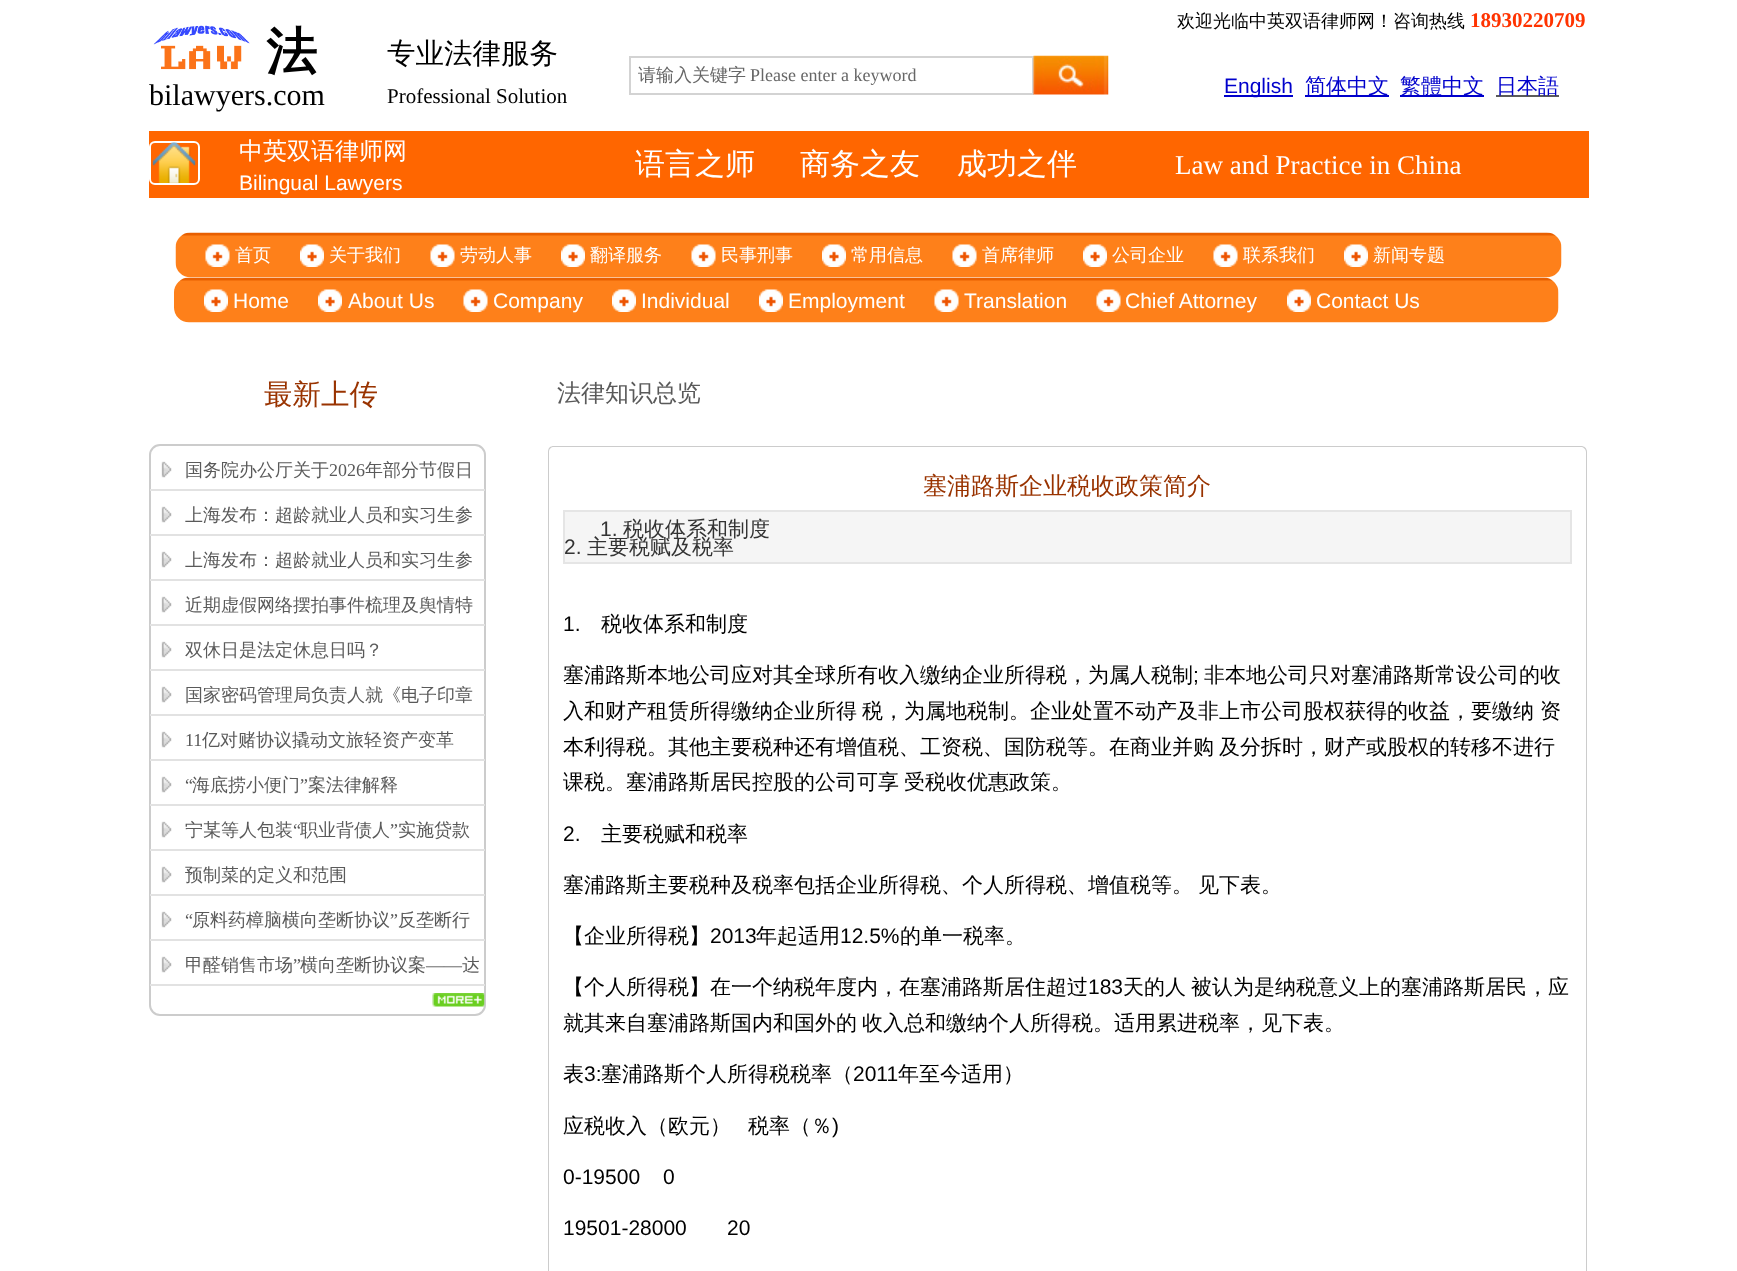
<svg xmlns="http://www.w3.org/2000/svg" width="1737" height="1271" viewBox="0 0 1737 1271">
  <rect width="100%" height="100%" fill="#ffffff"/>
  <text x="1177" y="27" font-family="WenQuanYi Zen Hei" font-size="18" font-weight="500" fill="#000000">欢迎光临中英双语律师网！咨询热线</text>
  <text x="1470" y="27" font-family="Liberation Serif" font-size="21" font-weight="bold" fill="#ff3300">18930220709</text>
  <image x="153" y="25" width="97" height="45" href="img1.png"/>
  <text x="266" y="69" font-family="WenQuanYi Zen Hei" font-size="51" font-weight="bold" fill="#000000">法</text>
  <text x="387" y="63" font-family="WenQuanYi Zen Hei" font-size="28.5" font-weight="500" fill="#000000">专业法律服务</text>
  <text x="387" y="103" font-family="Liberation Serif" font-size="21" fill="#000000">Professional Solution</text>
  <rect x="630" y="57" width="403" height="37" fill="none" stroke="#d3d3d3" stroke-width="2"/>
  <text x="638" y="81" font-family="WenQuanYi Zen Hei" font-size="18" font-weight="500" fill="#666666">请输入关键字</text>
  <text x="750" y="81" font-family="Liberation Serif" font-size="18" fill="#666666">Please enter a keyword</text>
  <image x="1033" y="55" width="76" height="40" href="img2.png"/>
  <rect x="1224" y="95" width="69" height="2" fill="#0000cc"/>
  <text x="1224" y="93" font-family="Liberation Sans" font-size="21" fill="#0000cc">English</text>
  <rect x="1305" y="95" width="84" height="2" fill="#0000cc"/>
  <text x="1305" y="93" font-family="WenQuanYi Zen Hei" font-size="21" font-weight="500" fill="#0000cc">简体中文</text>
  <rect x="1400" y="95" width="84" height="2" fill="#0000cc"/>
  <text x="1400" y="93" font-family="WenQuanYi Zen Hei" font-size="21" font-weight="500" fill="#0000cc">繁體中文</text>
  <rect x="1496" y="95" width="63" height="2" fill="#5a5a5a"/>
  <text x="1496" y="93" font-family="WenQuanYi Zen Hei" font-size="21" font-weight="500" fill="#0000cc">日本語</text>
  <text x="149" y="105" font-family="Liberation Serif" font-size="30" fill="#000000">bilawyers.com</text>
  <rect x="149" y="131" width="1440" height="67" fill="#ff6600"/>
  <rect x="150" y="142" width="49" height="42" rx="5" fill="none" stroke="#ffffff" stroke-width="2"/>
  <image x="152" y="142" width="44" height="41" href="img3.png"/>
  <text x="239" y="159" font-family="WenQuanYi Zen Hei" font-size="24" font-weight="500" fill="#ffffff">中英双语律师网</text>
  <text x="239" y="190" font-family="Liberation Sans" font-size="21" fill="#ffffff">Bilingual Lawyers</text>
  <text x="635" y="174" font-family="WenQuanYi Zen Hei" font-size="30" font-weight="500" fill="#ffffff">语言之师</text>
  <text x="800" y="174" font-family="WenQuanYi Zen Hei" font-size="30" font-weight="500" fill="#ffffff">商务之友</text>
  <text x="957" y="174" font-family="WenQuanYi Zen Hei" font-size="30" font-weight="500" fill="#ffffff">成功之伴</text>
  <text x="1175" y="174" font-family="Liberation Serif" font-size="27" fill="#ffffff">Law and Practice in China</text>
  <image x="174" y="277" width="1385" height="46" href="img9.png"/>
  <image x="175" y="232" width="1387" height="46" href="img4.png"/>
  <image x="205" y="244" width="25" height="23" href="img5.png"/>
  <text x="235" y="261" font-family="WenQuanYi Zen Hei" font-size="18" font-weight="500" fill="#ffffff">首页</text>
  <image x="300" y="244" width="24" height="23" href="img6.png"/>
  <text x="329" y="261" font-family="WenQuanYi Zen Hei" font-size="18" font-weight="500" fill="#ffffff">关于我们</text>
  <image x="430" y="244" width="25" height="23" href="img7.png"/>
  <text x="460" y="261" font-family="WenQuanYi Zen Hei" font-size="18" font-weight="500" fill="#ffffff">劳动人事</text>
  <image x="561" y="244" width="24" height="23" href="img6.png"/>
  <text x="590" y="261" font-family="WenQuanYi Zen Hei" font-size="18" font-weight="500" fill="#ffffff">翻译服务</text>
  <image x="691" y="244" width="25" height="23" href="img7.png"/>
  <text x="721" y="261" font-family="WenQuanYi Zen Hei" font-size="18" font-weight="500" fill="#ffffff">民事刑事</text>
  <image x="822" y="244" width="24" height="23" href="img8.png"/>
  <text x="851" y="261" font-family="WenQuanYi Zen Hei" font-size="18" font-weight="500" fill="#ffffff">常用信息</text>
  <image x="952" y="244" width="25" height="23" href="img5.png"/>
  <text x="982" y="261" font-family="WenQuanYi Zen Hei" font-size="18" font-weight="500" fill="#ffffff">首席律师</text>
  <image x="1083" y="244" width="24" height="23" href="img6.png"/>
  <text x="1112" y="261" font-family="WenQuanYi Zen Hei" font-size="18" font-weight="500" fill="#ffffff">公司企业</text>
  <image x="1213" y="244" width="25" height="23" href="img5.png"/>
  <text x="1243" y="261" font-family="WenQuanYi Zen Hei" font-size="18" font-weight="500" fill="#ffffff">联系我们</text>
  <image x="1344" y="244" width="24" height="23" href="img6.png"/>
  <text x="1373" y="261" font-family="WenQuanYi Zen Hei" font-size="18" font-weight="500" fill="#ffffff">新闻专题</text>
  <image x="204" y="289" width="24" height="23" href="img8.png"/>
  <text x="233" y="308" font-family="Liberation Sans" font-size="21" fill="#ffffff">Home</text>
  <image x="318" y="289" width="24" height="23" href="img6.png"/>
  <text x="348" y="308" font-family="Liberation Sans" font-size="21" fill="#ffffff">About Us</text>
  <image x="463" y="289" width="25" height="23" href="img5.png"/>
  <text x="493" y="308" font-family="Liberation Sans" font-size="21" fill="#ffffff">Company</text>
  <image x="612" y="289" width="24" height="23" href="img8.png"/>
  <text x="641" y="308" font-family="Liberation Sans" font-size="21" fill="#ffffff">Individual</text>
  <image x="759" y="289" width="24" height="23" href="img10.png"/>
  <text x="788" y="308" font-family="Liberation Sans" font-size="21" fill="#ffffff">Employment</text>
  <image x="934" y="289" width="25" height="23" href="img5.png"/>
  <text x="964" y="308" font-family="Liberation Sans" font-size="21" fill="#ffffff">Translation</text>
  <image x="1096" y="289" width="25" height="23" href="img5.png"/>
  <text x="1125" y="308" font-family="Liberation Sans" font-size="21" fill="#ffffff">Chief Attorney</text>
  <image x="1287" y="289" width="24" height="23" href="img11.png"/>
  <text x="1316" y="308" font-family="Liberation Sans" font-size="21" fill="#ffffff">Contact Us</text>
  <text x="264" y="404" font-family="WenQuanYi Zen Hei" font-size="28.5" font-weight="500" fill="#993300">最新上传</text>
  <text x="557" y="401" font-family="WenQuanYi Zen Hei" font-size="24" font-weight="500" fill="#5a5a5a">法律知识总览</text>
  <rect x="150" y="445" width="335" height="570" rx="10" fill="none" stroke="#cccccc" stroke-width="2"/>
  <image x="161" y="461" width="11" height="17" href="img12.png"/>
  <text x="185" y="476" font-family="WenQuanYi Zen Hei" font-size="18" font-weight="500" fill="#5a5a5a">国务院办公厅关于</text>
  <text x="329" y="476" font-family="Liberation Serif" font-size="18" fill="#5a5a5a">2026</text>
  <text x="365" y="476" font-family="WenQuanYi Zen Hei" font-size="18" font-weight="500" fill="#5a5a5a">年部分节假日</text>
  <rect x="150" y="489" width="335" height="2" fill="#e2e2e2"/>
  <image x="161" y="506" width="11" height="17" href="img12.png"/>
  <text x="185" y="521" font-family="WenQuanYi Zen Hei" font-size="18" font-weight="500" fill="#5a5a5a">上海发布：超龄就业人员和实习生参</text>
  <rect x="150" y="534" width="335" height="2" fill="#e2e2e2"/>
  <image x="161" y="551" width="11" height="17" href="img12.png"/>
  <text x="185" y="566" font-family="WenQuanYi Zen Hei" font-size="18" font-weight="500" fill="#5a5a5a">上海发布：超龄就业人员和实习生参</text>
  <rect x="150" y="579" width="335" height="2" fill="#e2e2e2"/>
  <image x="161" y="596" width="11" height="17" href="img12.png"/>
  <text x="185" y="611" font-family="WenQuanYi Zen Hei" font-size="18" font-weight="500" fill="#5a5a5a">近期虚假网络摆拍事件梳理及舆情特</text>
  <rect x="150" y="624" width="335" height="2" fill="#e2e2e2"/>
  <image x="161" y="641" width="11" height="17" href="img12.png"/>
  <text x="185" y="656" font-family="WenQuanYi Zen Hei" font-size="18" font-weight="500" fill="#5a5a5a">双休日是法定休息日吗？</text>
  <rect x="150" y="669" width="335" height="2" fill="#e2e2e2"/>
  <image x="161" y="686" width="11" height="17" href="img12.png"/>
  <text x="185" y="701" font-family="WenQuanYi Zen Hei" font-size="18" font-weight="500" fill="#5a5a5a">国家密码管理局负责人就《电子印章</text>
  <rect x="150" y="714" width="335" height="2" fill="#e2e2e2"/>
  <image x="161" y="731" width="11" height="17" href="img12.png"/>
  <text x="185" y="746" font-family="Liberation Serif" font-size="18" fill="#5a5a5a">11</text>
  <text x="202" y="746" font-family="WenQuanYi Zen Hei" font-size="18" font-weight="500" fill="#5a5a5a">亿对赌协议撬动文旅轻资产变革</text>
  <rect x="150" y="759" width="335" height="2" fill="#e2e2e2"/>
  <image x="161" y="776" width="11" height="17" href="img12.png"/>
  <text x="185" y="791" font-family="Liberation Serif" font-size="18" fill="#5a5a5a">“</text>
  <text x="192" y="791" font-family="WenQuanYi Zen Hei" font-size="18" font-weight="500" fill="#5a5a5a">海底捞小便门</text>
  <text x="300" y="791" font-family="Liberation Serif" font-size="18" fill="#5a5a5a">”</text>
  <text x="308" y="791" font-family="WenQuanYi Zen Hei" font-size="18" font-weight="500" fill="#5a5a5a">案法律解释</text>
  <rect x="150" y="804" width="335" height="2" fill="#e2e2e2"/>
  <image x="161" y="821" width="11" height="17" href="img12.png"/>
  <text x="185" y="836" font-family="WenQuanYi Zen Hei" font-size="18" font-weight="500" fill="#5a5a5a">宁某等人包装</text>
  <text x="293" y="836" font-family="Liberation Serif" font-size="18" fill="#5a5a5a">“</text>
  <text x="300" y="836" font-family="WenQuanYi Zen Hei" font-size="18" font-weight="500" fill="#5a5a5a">职业背债人</text>
  <text x="390" y="836" font-family="Liberation Serif" font-size="18" fill="#5a5a5a">”</text>
  <text x="398" y="836" font-family="WenQuanYi Zen Hei" font-size="18" font-weight="500" fill="#5a5a5a">实施贷款</text>
  <rect x="150" y="849" width="335" height="2" fill="#e2e2e2"/>
  <image x="161" y="866" width="11" height="17" href="img12.png"/>
  <text x="185" y="881" font-family="WenQuanYi Zen Hei" font-size="18" font-weight="500" fill="#5a5a5a">预制菜的定义和范围</text>
  <rect x="150" y="894" width="335" height="2" fill="#e2e2e2"/>
  <image x="161" y="911" width="11" height="17" href="img12.png"/>
  <text x="185" y="926" font-family="Liberation Serif" font-size="18" fill="#5a5a5a">“</text>
  <text x="192" y="926" font-family="WenQuanYi Zen Hei" font-size="18" font-weight="500" fill="#5a5a5a">原料药樟脑横向垄断协议</text>
  <text x="390" y="926" font-family="Liberation Serif" font-size="18" fill="#5a5a5a">”</text>
  <text x="398" y="926" font-family="WenQuanYi Zen Hei" font-size="18" font-weight="500" fill="#5a5a5a">反垄断行</text>
  <rect x="150" y="939" width="335" height="2" fill="#e2e2e2"/>
  <image x="161" y="956" width="11" height="17" href="img12.png"/>
  <text x="185" y="971" font-family="WenQuanYi Zen Hei" font-size="18" font-weight="500" fill="#5a5a5a">甲醛销售市场</text>
  <text x="293" y="971" font-family="Liberation Serif" font-size="18" fill="#5a5a5a">”</text>
  <text x="300" y="971" font-family="WenQuanYi Zen Hei" font-size="18" font-weight="500" fill="#5a5a5a">横向垄断协议案</text>
  <text x="426" y="971" font-family="Liberation Serif" font-size="18" fill="#5a5a5a">——</text>
  <text x="462" y="971" font-family="WenQuanYi Zen Hei" font-size="18" font-weight="500" fill="#5a5a5a">达</text>
  <rect x="150" y="984" width="335" height="2" fill="#e2e2e2"/>
  <image x="432" y="993" width="53" height="14" href="img13.png"/>
  <path d="M554 446H1581C1584 446 1587 448 1587 452V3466C1587 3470 1584 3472 1581 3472H554C550 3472 548 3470 548 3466V452C548 448 550 446 554 446ZM554 447H1581C1583 447 1586 449 1586 452V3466C1586 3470 1583 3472 1581 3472H554C551 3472 549 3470 549 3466V452C549 449 551 447 554 447Z" fill="#cccccc" fill-rule="evenodd"/>
  <text x="923" y="494" font-family="WenQuanYi Zen Hei" font-size="24" font-weight="500" fill="#993300">塞浦路斯企业税收政策简介</text>
  <rect x="564" y="511" width="1007" height="52" fill="#f5f5f5" stroke="#e5e5e5" stroke-width="2"/>
  <text x="600" y="536" font-family="Liberation Sans" font-size="21" fill="#333333">1.</text>
  <text x="623" y="536" font-family="WenQuanYi Zen Hei" font-size="21" font-weight="500" fill="#333333">税收体系和制度</text>
  <text x="564" y="554" font-family="Liberation Sans" font-size="21" fill="#333333">2.</text>
  <text x="587" y="554" font-family="WenQuanYi Zen Hei" font-size="21" font-weight="500" fill="#333333">主要税赋及税率</text>
  <text x="563" y="631" font-family="Liberation Sans" font-size="21" fill="#000000">1.</text>
  <text x="601" y="631" font-family="WenQuanYi Zen Hei" font-size="21" font-weight="500" fill="#000000">税收体系和制度</text>
  <text x="563" y="682" font-family="WenQuanYi Zen Hei" font-size="21" font-weight="500" fill="#000000">塞浦路斯本地公司应对其全球所有收入缴纳企业所得税，为属人税制</text>
  <text x="1193" y="682" font-family="Liberation Sans" font-size="21" fill="#000000">;</text>
  <text x="1204" y="682" font-family="WenQuanYi Zen Hei" font-size="21" font-weight="500" fill="#000000">非本地公司只对塞浦路斯常设公司的收</text>
  <text x="563" y="718" font-family="WenQuanYi Zen Hei" font-size="21" font-weight="500" fill="#000000">入和财产租赁所得缴纳企业所得</text>
  <text x="862" y="718" font-family="WenQuanYi Zen Hei" font-size="21" font-weight="500" fill="#000000">税，为属地税制。企业处置不动产及非上市公司股权获得的收益，要缴纳</text>
  <text x="1540" y="718" font-family="WenQuanYi Zen Hei" font-size="21" font-weight="500" fill="#000000">资</text>
  <text x="563" y="754" font-family="WenQuanYi Zen Hei" font-size="21" font-weight="500" fill="#000000">本利得税。其他主要税种还有增值税、工资税、国防税等。在商业并购</text>
  <text x="1219" y="754" font-family="WenQuanYi Zen Hei" font-size="21" font-weight="500" fill="#000000">及分拆时，财产或股权的转移不进行</text>
  <text x="563" y="789" font-family="WenQuanYi Zen Hei" font-size="21" font-weight="500" fill="#000000">课税。塞浦路斯居民控股的公司可享</text>
  <text x="904" y="789" font-family="WenQuanYi Zen Hei" font-size="21" font-weight="500" fill="#000000">受税收优惠政策。</text>
  <text x="563" y="841" font-family="Liberation Sans" font-size="21" fill="#000000">2.</text>
  <text x="601" y="841" font-family="WenQuanYi Zen Hei" font-size="21" font-weight="500" fill="#000000">主要税赋和税率</text>
  <text x="563" y="892" font-family="WenQuanYi Zen Hei" font-size="21" font-weight="500" fill="#000000">塞浦路斯主要税种及税率包括企业所得税、个人所得税、增值税等。</text>
  <text x="1198" y="892" font-family="WenQuanYi Zen Hei" font-size="21" font-weight="500" fill="#000000">见下表。</text>
  <text x="563" y="943" font-family="WenQuanYi Zen Hei" font-size="21" font-weight="500" fill="#000000">【企业所得税】</text>
  <text x="710" y="943" font-family="Liberation Sans" font-size="21" fill="#000000">2013</text>
  <text x="756" y="943" font-family="WenQuanYi Zen Hei" font-size="21" font-weight="500" fill="#000000">年起适用</text>
  <text x="840" y="943" font-family="Liberation Sans" font-size="21" fill="#000000">12.5%</text>
  <text x="900" y="943" font-family="WenQuanYi Zen Hei" font-size="21" font-weight="500" fill="#000000">的单一税率。</text>
  <text x="563" y="994" font-family="WenQuanYi Zen Hei" font-size="21" font-weight="500" fill="#000000">【个人所得税】在一个纳税年度内，在塞浦路斯居住超过</text>
  <text x="1088" y="994" font-family="Liberation Sans" font-size="21" fill="#000000">183</text>
  <text x="1123" y="994" font-family="WenQuanYi Zen Hei" font-size="21" font-weight="500" fill="#000000">天的人</text>
  <text x="1191" y="994" font-family="WenQuanYi Zen Hei" font-size="21" font-weight="500" fill="#000000">被认为是纳税意义上的塞浦路斯居民，应</text>
  <text x="563" y="1030" font-family="WenQuanYi Zen Hei" font-size="21" font-weight="500" fill="#000000">就其来自塞浦路斯国内和国外的</text>
  <text x="862" y="1030" font-family="WenQuanYi Zen Hei" font-size="21" font-weight="500" fill="#000000">收入总和缴纳个人所得税。适用累进税率，见下表。</text>
  <text x="563" y="1081" font-family="WenQuanYi Zen Hei" font-size="21" font-weight="500" fill="#000000">表</text>
  <text x="584" y="1081" font-family="Liberation Sans" font-size="21" fill="#000000">3:</text>
  <text x="601" y="1081" font-family="WenQuanYi Zen Hei" font-size="21" font-weight="500" fill="#000000">塞浦路斯个人所得税税率（</text>
  <text x="853" y="1081" font-family="Liberation Sans" font-size="21" fill="#000000">2011</text>
  <text x="898" y="1081" font-family="WenQuanYi Zen Hei" font-size="21" font-weight="500" fill="#000000">年至今适用）</text>
  <text x="563" y="1133" font-family="WenQuanYi Zen Hei" font-size="21" font-weight="500" fill="#000000">应税收入（欧元）</text>
  <text x="748" y="1133" font-family="WenQuanYi Zen Hei" font-size="21" font-weight="500" fill="#000000">税率（％</text>
  <text x="832" y="1133" font-family="Liberation Sans" font-size="21" fill="#000000">)</text>
  <text x="563" y="1184" font-family="Liberation Sans" font-size="21" fill="#000000">0-19500</text>
  <text x="663" y="1184" font-family="Liberation Sans" font-size="21" fill="#000000">0</text>
  <text x="563" y="1235" font-family="Liberation Sans" font-size="21" fill="#000000">19501-28000</text>
  <text x="727" y="1235" font-family="Liberation Sans" font-size="21" fill="#000000">20</text>
</svg>
